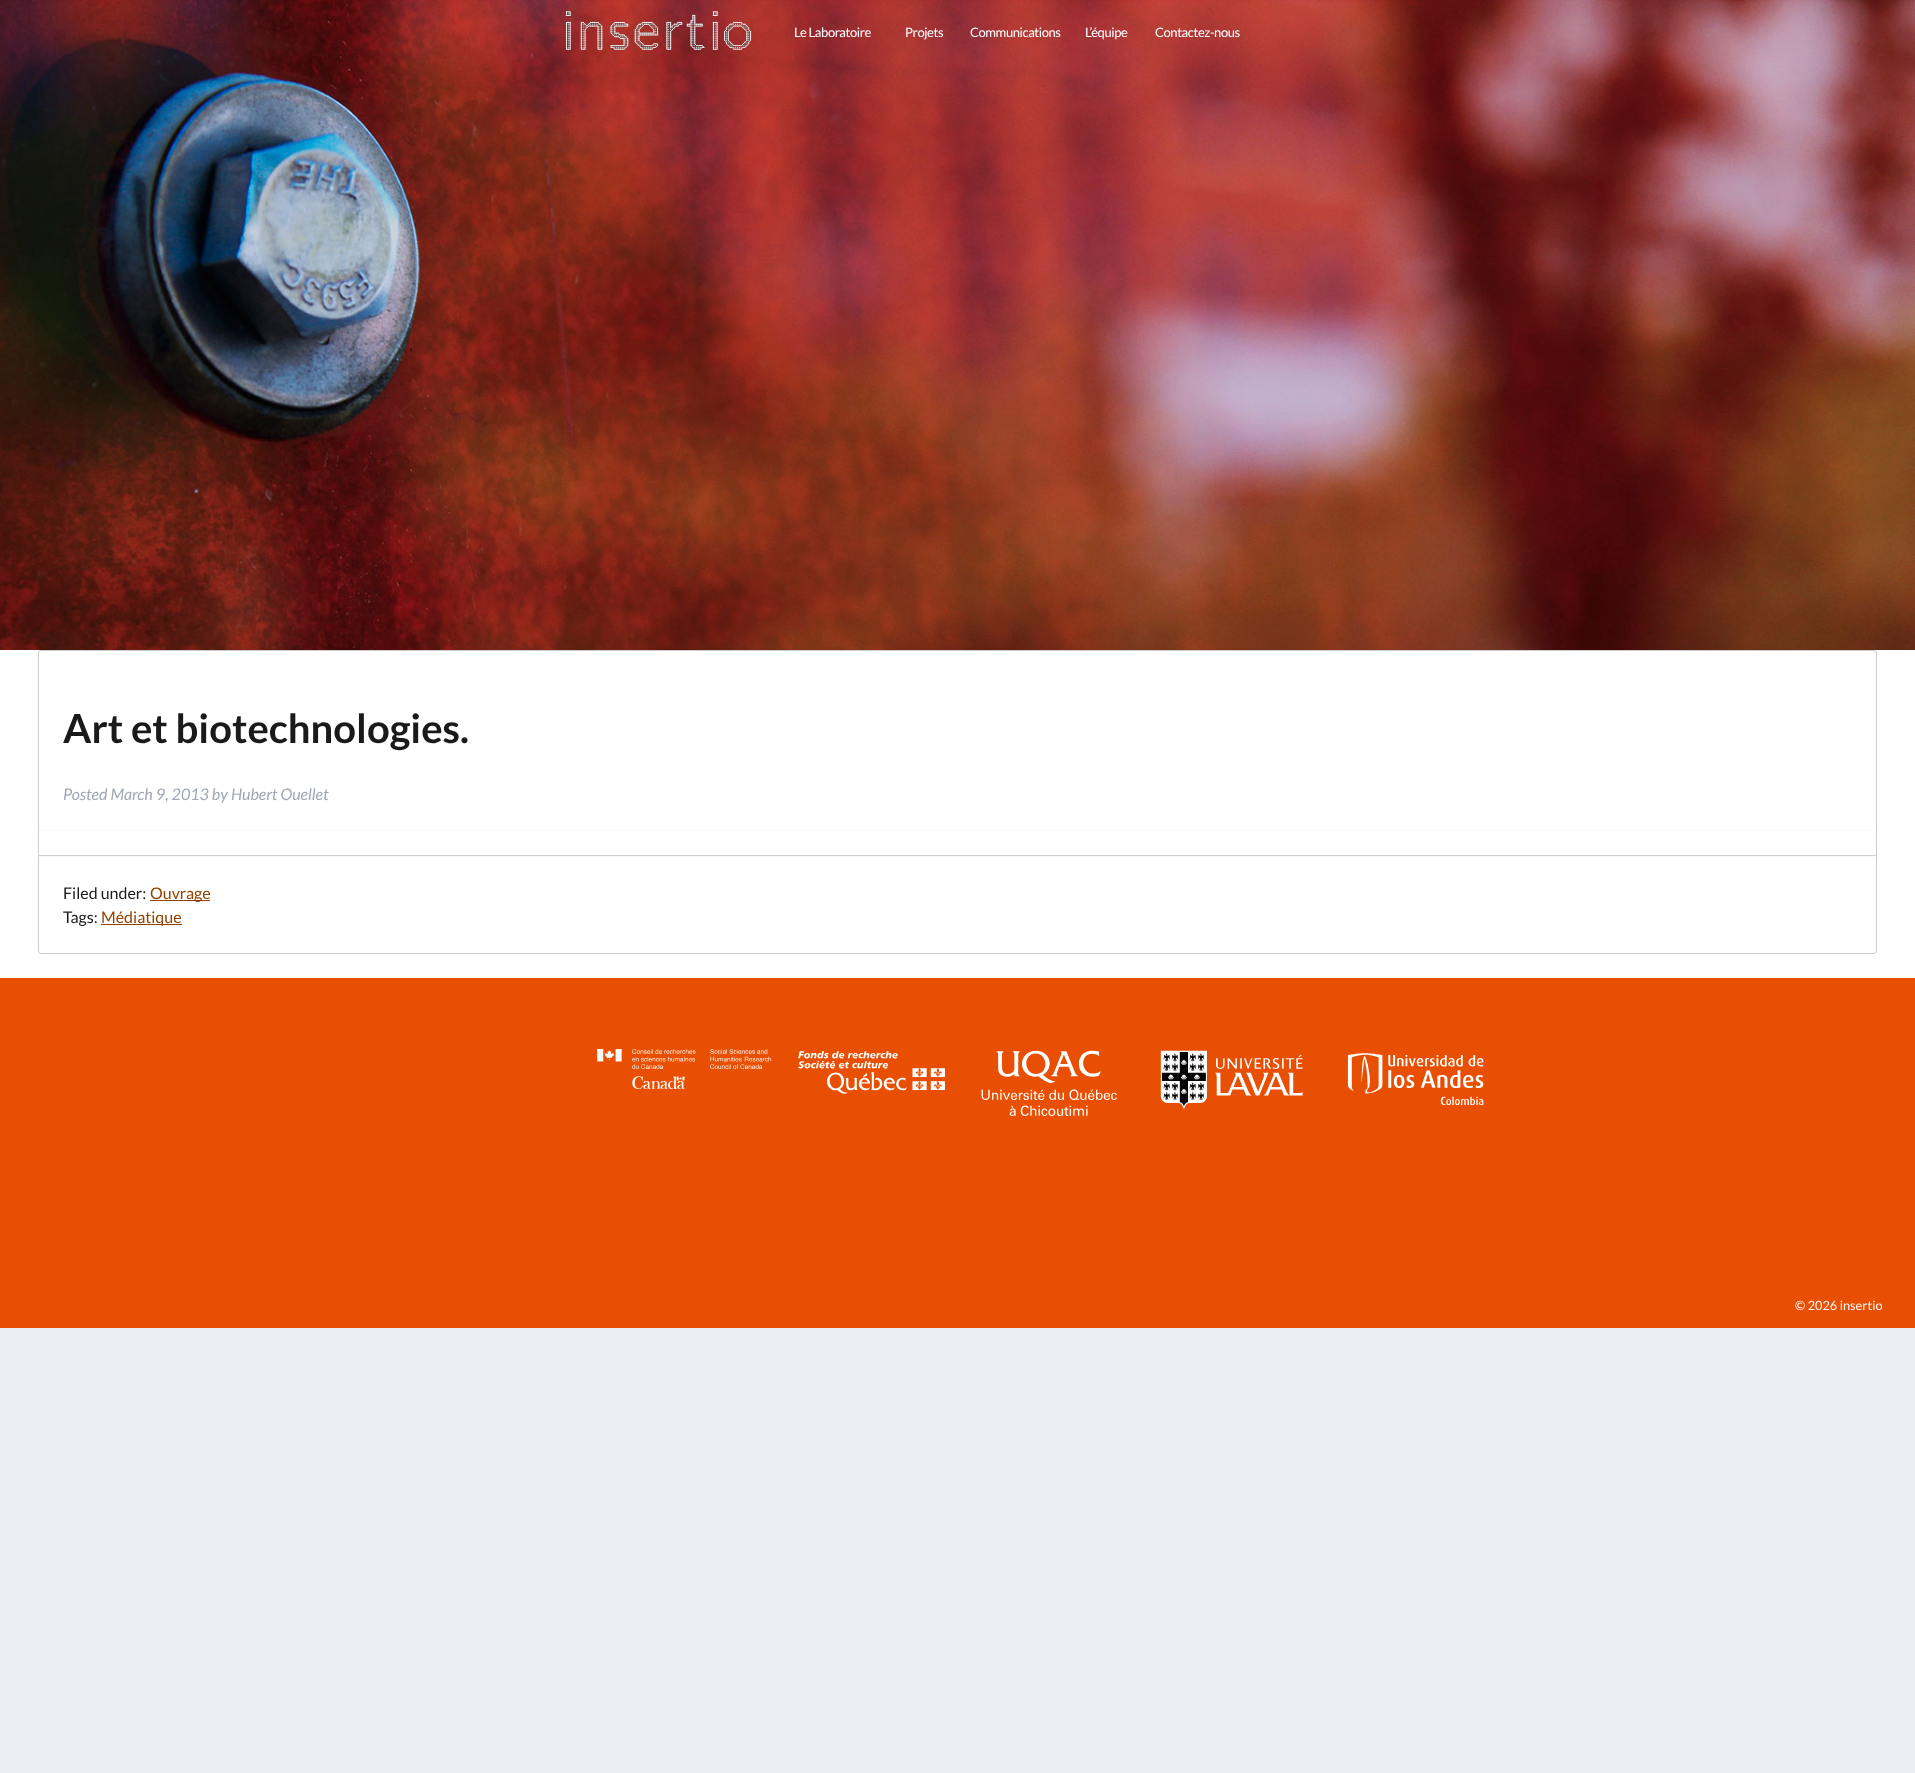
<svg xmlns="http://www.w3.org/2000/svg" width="1915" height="1773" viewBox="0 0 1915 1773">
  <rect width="100%" height="100%" fill="#eaedf2"/>
  <image x="0" y="0" width="1915" height="650" href="img1.png"/>
  <image x="565" y="10" width="187" height="41" href="img2.png"/>
  <text x="794" y="37" font-family="Lato" font-size="13" letter-spacing="-0.4" fill="#ffffff">Le Laboratoire</text>
  <text x="905" y="37" font-family="Lato" font-size="13" letter-spacing="-0.4" fill="#ffffff">Projets</text>
  <text x="970" y="37" font-family="Lato" font-size="13" letter-spacing="-0.4" fill="#ffffff">Communications</text>
  <text x="1085" y="37" font-family="Lato" font-size="13" letter-spacing="-0.4" fill="#ffffff">L’équipe</text>
  <text x="1155" y="37" font-family="Lato" font-size="13" letter-spacing="-0.4" fill="#ffffff">Contactez-nous</text>
  <rect x="0" y="650" width="1915" height="328" fill="#ffffff"/>
  <rect x="38.5" y="650.5" width="1838" height="303" rx="2.5" fill="none" stroke="#cccccc"/>
  <rect x="39" y="830" width="1837" height="1" fill="#f8f9fa"/>
  <text x="63" y="743" font-family="Lato" font-size="40" font-weight="bold" fill="#1a1a1a">Art et biotechnologies.</text>
  <text x="63" y="800" font-family="Lato" font-size="16" font-style="italic" fill="#9fa6b4">Posted March 9, 2013 by Hubert Ouellet</text>
  <rect x="39" y="855" width="1837" height="1" fill="#d1d1d1"/>
  <rect x="39" y="856" width="1837" height="1" fill="#f8f9fa"/>
  <text x="63" y="899" font-family="Lato" font-size="16" fill="#1a1a1a">Filed under:</text>
  <rect x="150" y="900" width="60" height="1" fill="#934300"/>
  <text x="150" y="899" font-family="Lato" font-size="16" fill="#934300">Ouvrage</text>
  <text x="63" y="923" font-family="Lato" font-size="16" fill="#1a1a1a">Tags:</text>
  <rect x="101" y="924" width="81" height="1" fill="#934300"/>
  <text x="101" y="923" font-family="Lato" font-size="16" fill="#934300">Médiatique</text>
  <rect x="0" y="978" width="1915" height="350" fill="#e84f02"/>
  <image x="597" y="1049" width="175" height="40" href="img3.png"/>
  <image x="798" y="1051" width="147" height="43" href="img4.png"/>
  <image x="981" y="1050" width="136" height="66" href="img5.png"/>
  <image x="1160" y="1050" width="143" height="59" href="img6.png"/>
  <image x="1347" y="1053" width="137" height="52" href="img7.png"/>
  <text x="1795" y="1310" font-family="Lato" font-size="12.75" fill="#f8f9fa">© 2026 insertio</text>
</svg>
